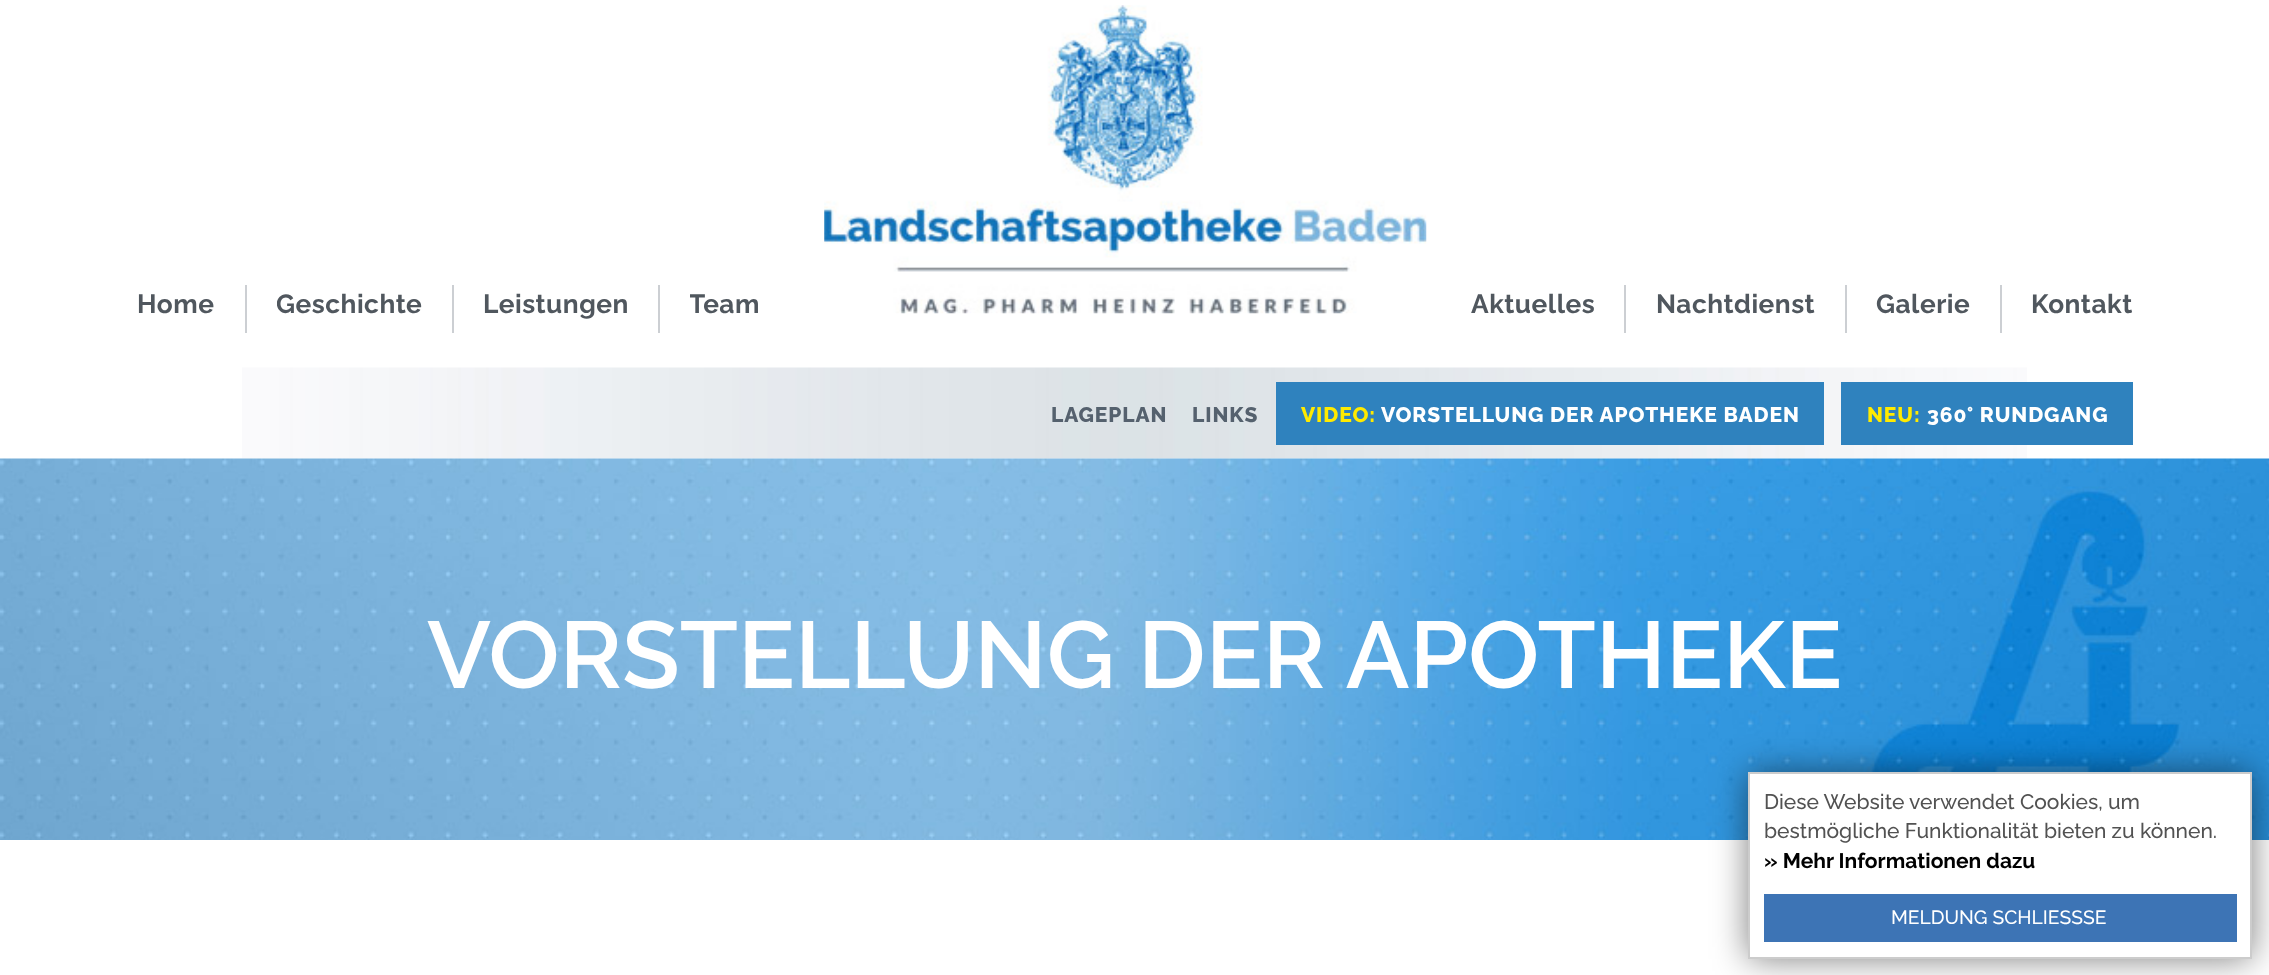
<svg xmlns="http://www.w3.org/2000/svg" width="2269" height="975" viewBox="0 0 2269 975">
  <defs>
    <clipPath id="clip1"><rect x="277" y="285" width="145" height="48"/></clipPath>
    <clipPath id="clip2"><rect x="690" y="285" width="70" height="48"/></clipPath>
    <filter id="blur1" x="-50%" y="-200%" width="200%" height="500%"><feGaussianBlur stdDeviation="17.5"/></filter>
  </defs>
  <rect width="100%" height="100%" fill="#ffffff"/>
  <rect x="245" y="285" width="2" height="48" fill="#cccfd3"/>
  <text x="137" y="313" font-family="Raleway" font-size="26.25" font-weight="100" letter-spacing="0.5" fill="#50575e">Home</text>
  <rect x="452" y="285" width="2" height="48" fill="#cccfd3"/>
  <g clip-path="url(#clip1)">
    <text x="276" y="313" font-family="Raleway" font-size="26.25" font-weight="100" letter-spacing="0.5" fill="#50575e">Geschichte</text>
  </g>
  <rect x="658" y="285" width="2" height="48" fill="#cccfd3"/>
  <text x="483" y="313" font-family="Raleway" font-size="26.25" font-weight="100" letter-spacing="0.5" fill="#50575e">Leistungen</text>
  <g clip-path="url(#clip2)">
    <text x="689" y="313" font-family="Raleway" font-size="26.25" font-weight="100" letter-spacing="0.5" fill="#50575e">Team</text>
  </g>
  <image x="824" y="5" width="603" height="309" href="img1.png"/>
  <rect x="1624" y="285" width="2" height="48" fill="#cccfd3"/>
  <text x="1471" y="313" font-family="Raleway" font-size="26.25" font-weight="100" letter-spacing="0.5" fill="#50575e">Aktuelles</text>
  <rect x="1845" y="285" width="2" height="48" fill="#cccfd3"/>
  <text x="1656" y="313" font-family="Raleway" font-size="26.25" font-weight="100" letter-spacing="0.5" fill="#50575e">Nachtdienst</text>
  <rect x="2000" y="285" width="2" height="48" fill="#cccfd3"/>
  <text x="1876" y="313" font-family="Raleway" font-size="26.25" font-weight="100" letter-spacing="0.5" fill="#50575e">Galerie</text>
  <text x="2031" y="313" font-family="Raleway" font-size="26.25" font-weight="100" letter-spacing="0.5" fill="#50575e">Kontakt</text>
  <image x="242" y="367" width="1785" height="92" href="img2.png"/>
  <text x="1051" y="422" font-family="'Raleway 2'" font-size="21" font-weight="100" letter-spacing="0.9" fill="#55616e">LAGEPLAN</text>
  <text x="1192" y="422" font-family="'Raleway 2'" font-size="21" font-weight="100" letter-spacing="0.9" fill="#55616e">LINKS</text>
  <rect x="1276" y="382" width="548" height="63" fill="#2f82be"/>
  <text x="1301" y="422" font-family="'Raleway 2'" font-size="21" font-weight="100" letter-spacing="0.9" fill="#ffea00">VIDEO:</text>
  <text x="1381" y="422" font-family="'Raleway 2'" font-size="21" font-weight="100" letter-spacing="0.9" fill="#ffffff">VORSTELLUNG DER APOTHEKE BADEN</text>
  <rect x="1841" y="382" width="292" height="63" fill="#2f82be"/>
  <text x="1867" y="422" font-family="'Raleway 2'" font-size="21" font-weight="100" letter-spacing="0.9" fill="#ffea00">NEU:</text>
  <text x="1927" y="422" font-family="'Raleway 2'" font-size="21" font-weight="100" letter-spacing="0.9" fill="#ffffff">360° RUNDGANG</text>
  <image x="0" y="458" width="2269" height="382" href="img3.png"/>
  <text x="427" y="688" font-family="'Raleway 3'" font-size="94.5" font-weight="100" fill="#ffffff">VORSTELLUNG DER APOTHEKE</text>
  <rect x="1748" y="772" width="504" height="187" fill="#000000" fill-opacity="0.5" filter="url(#blur1)"/>
  <rect x="1749" y="773" width="502" height="185" fill="#ffffff" stroke="#cccccc" stroke-width="2"/>
  <text x="1764" y="809" font-family="'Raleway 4'" font-size="21" font-weight="100" fill="#525252">Diese Website verwendet Cookies, um</text>
  <text x="1764" y="838" font-family="'Raleway 4'" font-size="21" font-weight="100" fill="#525252">bestmögliche Funktionalität bieten zu können.</text>
  <text x="1764" y="868" font-family="Raleway" font-size="21" font-weight="100" fill="#000000">» Mehr Informationen dazu</text>
  <rect x="1764" y="894" width="473" height="48" fill="#3d74b5"/>
  <text x="1891" y="924" font-family="'Raleway 4'" font-size="19.25" font-weight="100" fill="#ffffff">MELDUNG SCHLIESSSE</text>
</svg>
